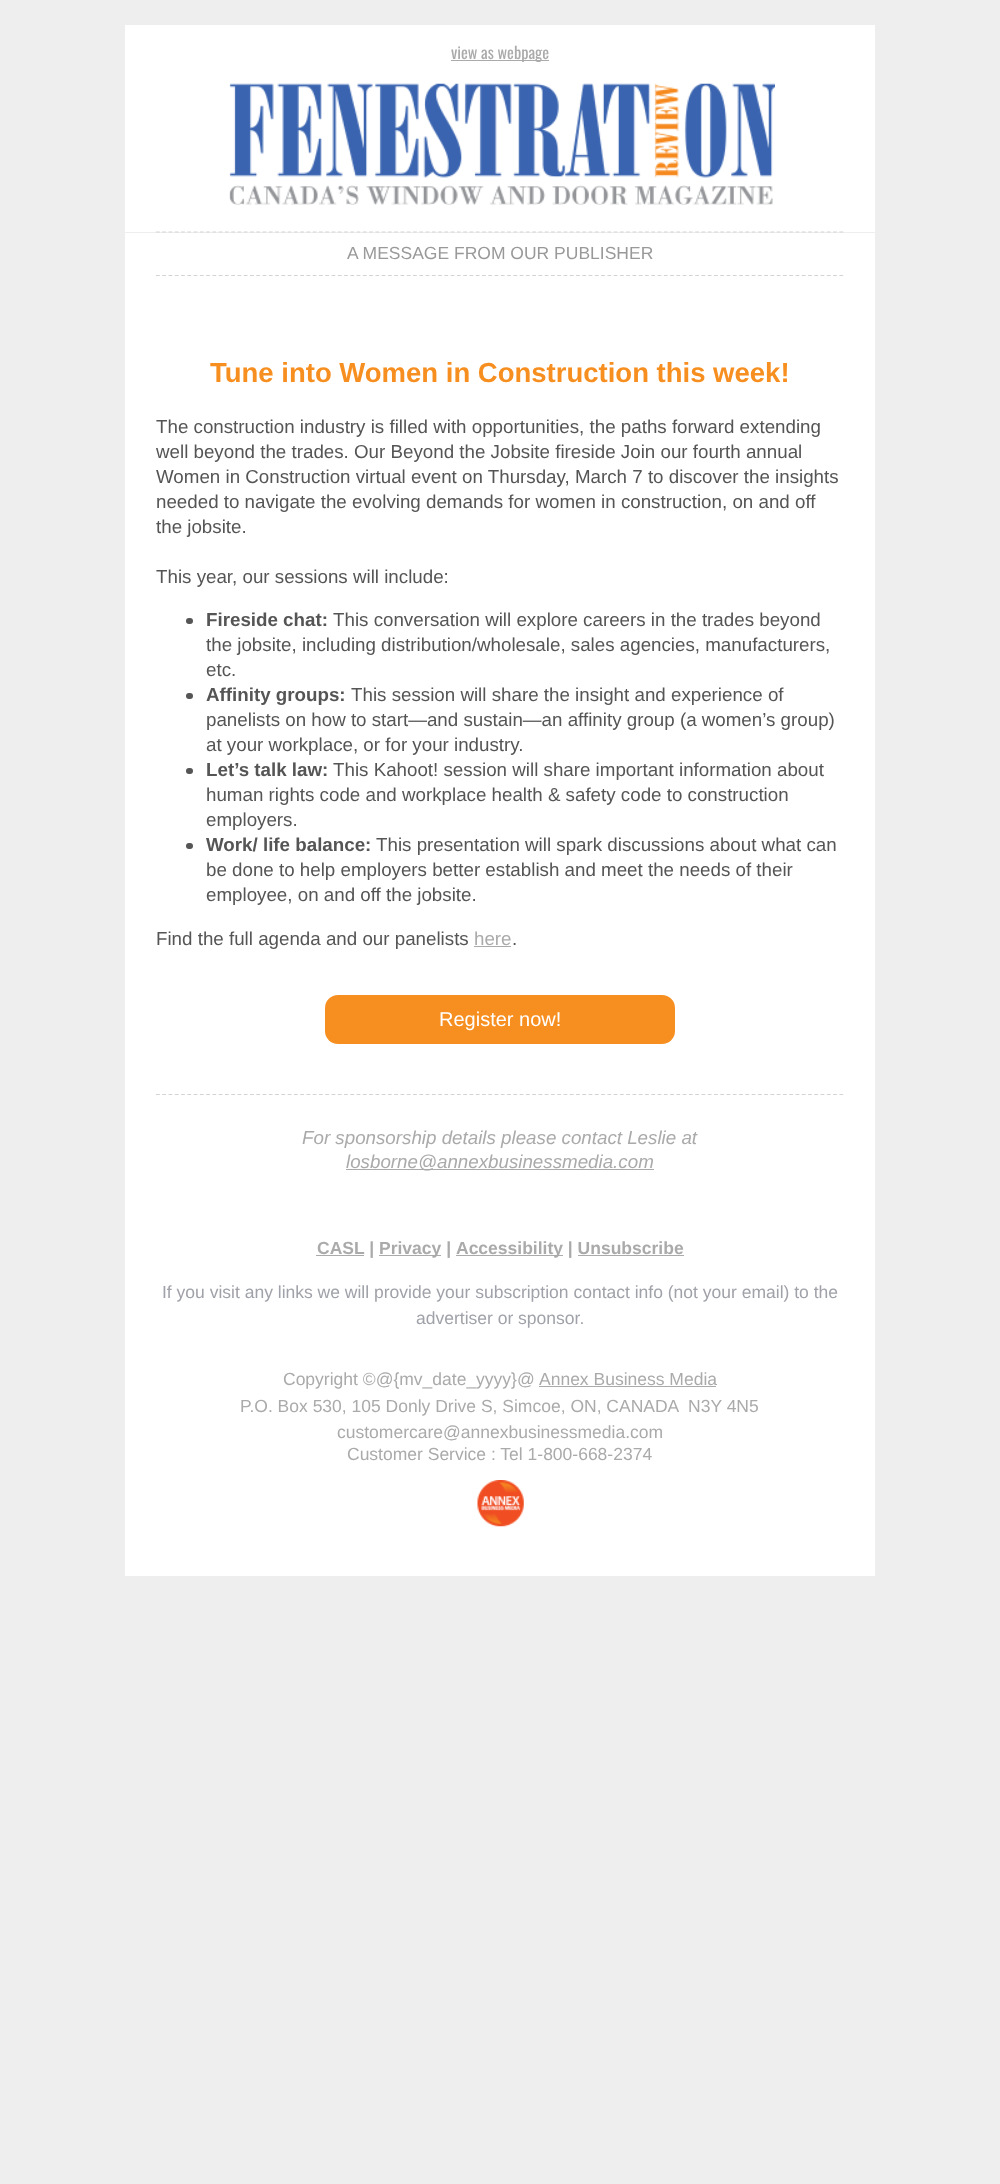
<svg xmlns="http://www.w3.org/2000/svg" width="1000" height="2184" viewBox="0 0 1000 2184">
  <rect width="100%" height="100%" fill="#eeeeee"/>
  <rect x="125" y="25" width="750" height="207" fill="#ffffff"/>
  <rect x="451" y="60" width="98" height="1" fill="#aaaaaa"/>
  <text x="451" y="59" font-family="Oswald" font-size="16.25" fill="#aaaaaa">view as webpage</text>
  <image x="229" y="83" width="546" height="122" href="img1.png"/>
  <path d="M156 232H844" fill="none" stroke="#d3d3d3" stroke-width="1.2" stroke-dasharray="3.75 2.52"/>
  <rect x="125" y="233" width="750" height="1343" fill="#ffffff"/>
  <text x="347" y="259" font-family="Liberation Sans" font-size="17.5" fill="#999999">A MESSAGE FROM OUR PUBLISHER</text>
  <path d="M156 275.5H844" fill="none" stroke="#d3d3d3" stroke-width="1.2" stroke-dasharray="3.75 2.52"/>
  <text x="210" y="382" font-family="Liberation Sans" font-size="27.5" font-weight="bold" fill="#f78f20">Tune into Women in Construction this week!</text>
  <text x="156" y="433" font-family="Liberation Sans" font-size="18.75" fill="#555555">The construction industry is filled with opportunities, the paths forward extending</text>
  <text x="156" y="458" font-family="Liberation Sans" font-size="18.75" fill="#555555">well beyond the trades. Our Beyond the Jobsite fireside Join our fourth annual</text>
  <text x="156" y="483" font-family="Liberation Sans" font-size="18.75" fill="#555555">Women in Construction virtual event on Thursday, March 7 to discover the insights</text>
  <text x="156" y="508" font-family="Liberation Sans" font-size="18.75" fill="#555555">needed to navigate the evolving demands for women in construction, on and off</text>
  <text x="156" y="533" font-family="Liberation Sans" font-size="18.75" fill="#555555">the jobsite.</text>
  <text x="156" y="583" font-family="Liberation Sans" font-size="18.75" fill="#555555">This year, our sessions will include:</text>
  <rect x="186" y="618" width="7" height="6" rx="3" fill="#555555"/>
  <text x="206" y="626" font-family="Liberation Sans" font-size="18.75" font-weight="bold" fill="#555555">Fireside chat:</text>
  <text x="333" y="626" font-family="Liberation Sans" font-size="18.75" fill="#555555">This conversation will explore careers in the trades beyond</text>
  <text x="206" y="651" font-family="Liberation Sans" font-size="18.75" fill="#555555">the jobsite, including distribution/wholesale, sales agencies, manufacturers,</text>
  <text x="206" y="676" font-family="Liberation Sans" font-size="18.75" fill="#555555">etc.</text>
  <rect x="186" y="693" width="7" height="6" rx="3" fill="#555555"/>
  <text x="206" y="701" font-family="Liberation Sans" font-size="18.75" font-weight="bold" fill="#555555">Affinity groups:</text>
  <text x="351" y="701" font-family="Liberation Sans" font-size="18.75" fill="#555555">This session will share the insight and experience of</text>
  <text x="206" y="726" font-family="Liberation Sans" font-size="18.75" fill="#555555">panelists on how to start—and sustain—an affinity group (a women’s group)</text>
  <text x="206" y="751" font-family="Liberation Sans" font-size="18.75" fill="#555555">at your workplace, or for your industry.</text>
  <rect x="186" y="768" width="7" height="6" rx="3" fill="#555555"/>
  <text x="206" y="776" font-family="Liberation Sans" font-size="18.75" font-weight="bold" fill="#555555">Let’s talk law:</text>
  <text x="333" y="776" font-family="Liberation Sans" font-size="18.75" fill="#555555">This Kahoot! session will share important information about</text>
  <text x="206" y="801" font-family="Liberation Sans" font-size="18.75" fill="#555555">human rights code and workplace health &amp; safety code to construction</text>
  <text x="206" y="826" font-family="Liberation Sans" font-size="18.75" fill="#555555">employers.</text>
  <rect x="186" y="843" width="7" height="6" rx="3" fill="#555555"/>
  <text x="206" y="851" font-family="Liberation Sans" font-size="18.75" font-weight="bold" fill="#555555">Work/ life balance:</text>
  <text x="376" y="851" font-family="Liberation Sans" font-size="18.75" fill="#555555">This presentation will spark discussions about what can</text>
  <text x="206" y="876" font-family="Liberation Sans" font-size="18.75" fill="#555555">be done to help employers better establish and meet the needs of their</text>
  <text x="206" y="901" font-family="Liberation Sans" font-size="18.75" fill="#555555">employee, on and off the jobsite.</text>
  <text x="156" y="945" font-family="Liberation Sans" font-size="18.75" fill="#555555">Find the full agenda and our panelists</text>
  <text x="474" y="945" font-family="Liberation Sans" font-size="18.75" fill="#aaaaaa">here</text>
  <rect x="474" y="946" width="37" height="1" fill="#aaaaaa"/>
  <text x="512" y="945" font-family="Liberation Sans" font-size="18.75" fill="#555555">.</text>
  <rect x="325" y="995" width="350" height="49" rx="13" fill="#f78f20"/>
  <text x="439" y="1026" font-family="Liberation Sans" font-size="20" fill="#ffffff">Register now!</text>
  <path d="M156 1094.5H844" fill="none" stroke="#d3d3d3" stroke-width="1.2" stroke-dasharray="3.75 2.52"/>
  <text x="302" y="1144" font-family="Liberation Sans" font-size="18.75" font-style="italic" fill="#aaaaaa">For sponsorship details please contact Leslie at</text>
  <rect x="346" y="1169" width="308" height="1" fill="#aaaaaa"/>
  <text x="346" y="1168" font-family="Liberation Sans" font-size="18.75" font-style="italic" fill="#aaaaaa">losborne@annexbusinessmedia.com</text>
  <rect x="316" y="1255" width="48" height="1" fill="#aaaaaa"/>
  <text x="317" y="1254" font-family="Liberation Sans" font-size="17.5" font-weight="bold" fill="#aaaaaa">CASL |</text>
  <rect x="379" y="1255" width="62" height="1" fill="#aaaaaa"/>
  <text x="379" y="1254" font-family="Liberation Sans" font-size="17.5" font-weight="bold" fill="#aaaaaa">Privacy |</text>
  <rect x="456" y="1255" width="107" height="1" fill="#aaaaaa"/>
  <text x="456" y="1254" font-family="Liberation Sans" font-size="17.5" font-weight="bold" fill="#aaaaaa">Accessibility | Unsubscribe</text>
  <rect x="578" y="1255" width="106" height="1" fill="#aaaaaa"/>
  <text x="162" y="1298" font-family="Liberation Sans" font-size="17.5" fill="#a0a2a9">If you visit any links we will provide your subscription contact info (not your email) to the</text>
  <text x="416" y="1324" font-family="Liberation Sans" font-size="17.5" fill="#a0a2a9">advertiser or sponsor.</text>
  <text x="283" y="1385" font-family="Liberation Sans" font-size="17.5" fill="#aaaaaa">Copyright ©@{mv_date_yyyy}@</text>
  <text x="539" y="1385" font-family="Liberation Sans" font-size="17.5" fill="#aaaaaa">Annex Business Media</text>
  <rect x="539" y="1386" width="177" height="1" fill="#aaaaaa"/>
  <text x="240" y="1412" font-family="Liberation Sans" font-size="17.5" fill="#aaaaaa" xml:space="preserve">P.O. Box 530, 105 Donly Drive S, Simcoe, ON, CANADA  N3Y 4N5</text>
  <text x="337" y="1438" font-family="Liberation Sans" font-size="17.5" fill="#aaaaaa">customercare@annexbusinessmedia.com</text>
  <text x="347" y="1460" font-family="Liberation Sans" font-size="17.5" fill="#aaaaaa">Customer Service : Tel 1-800-668-2374</text>
  <image x="477" y="1480" width="47" height="47" href="img2.png"/>
</svg>
